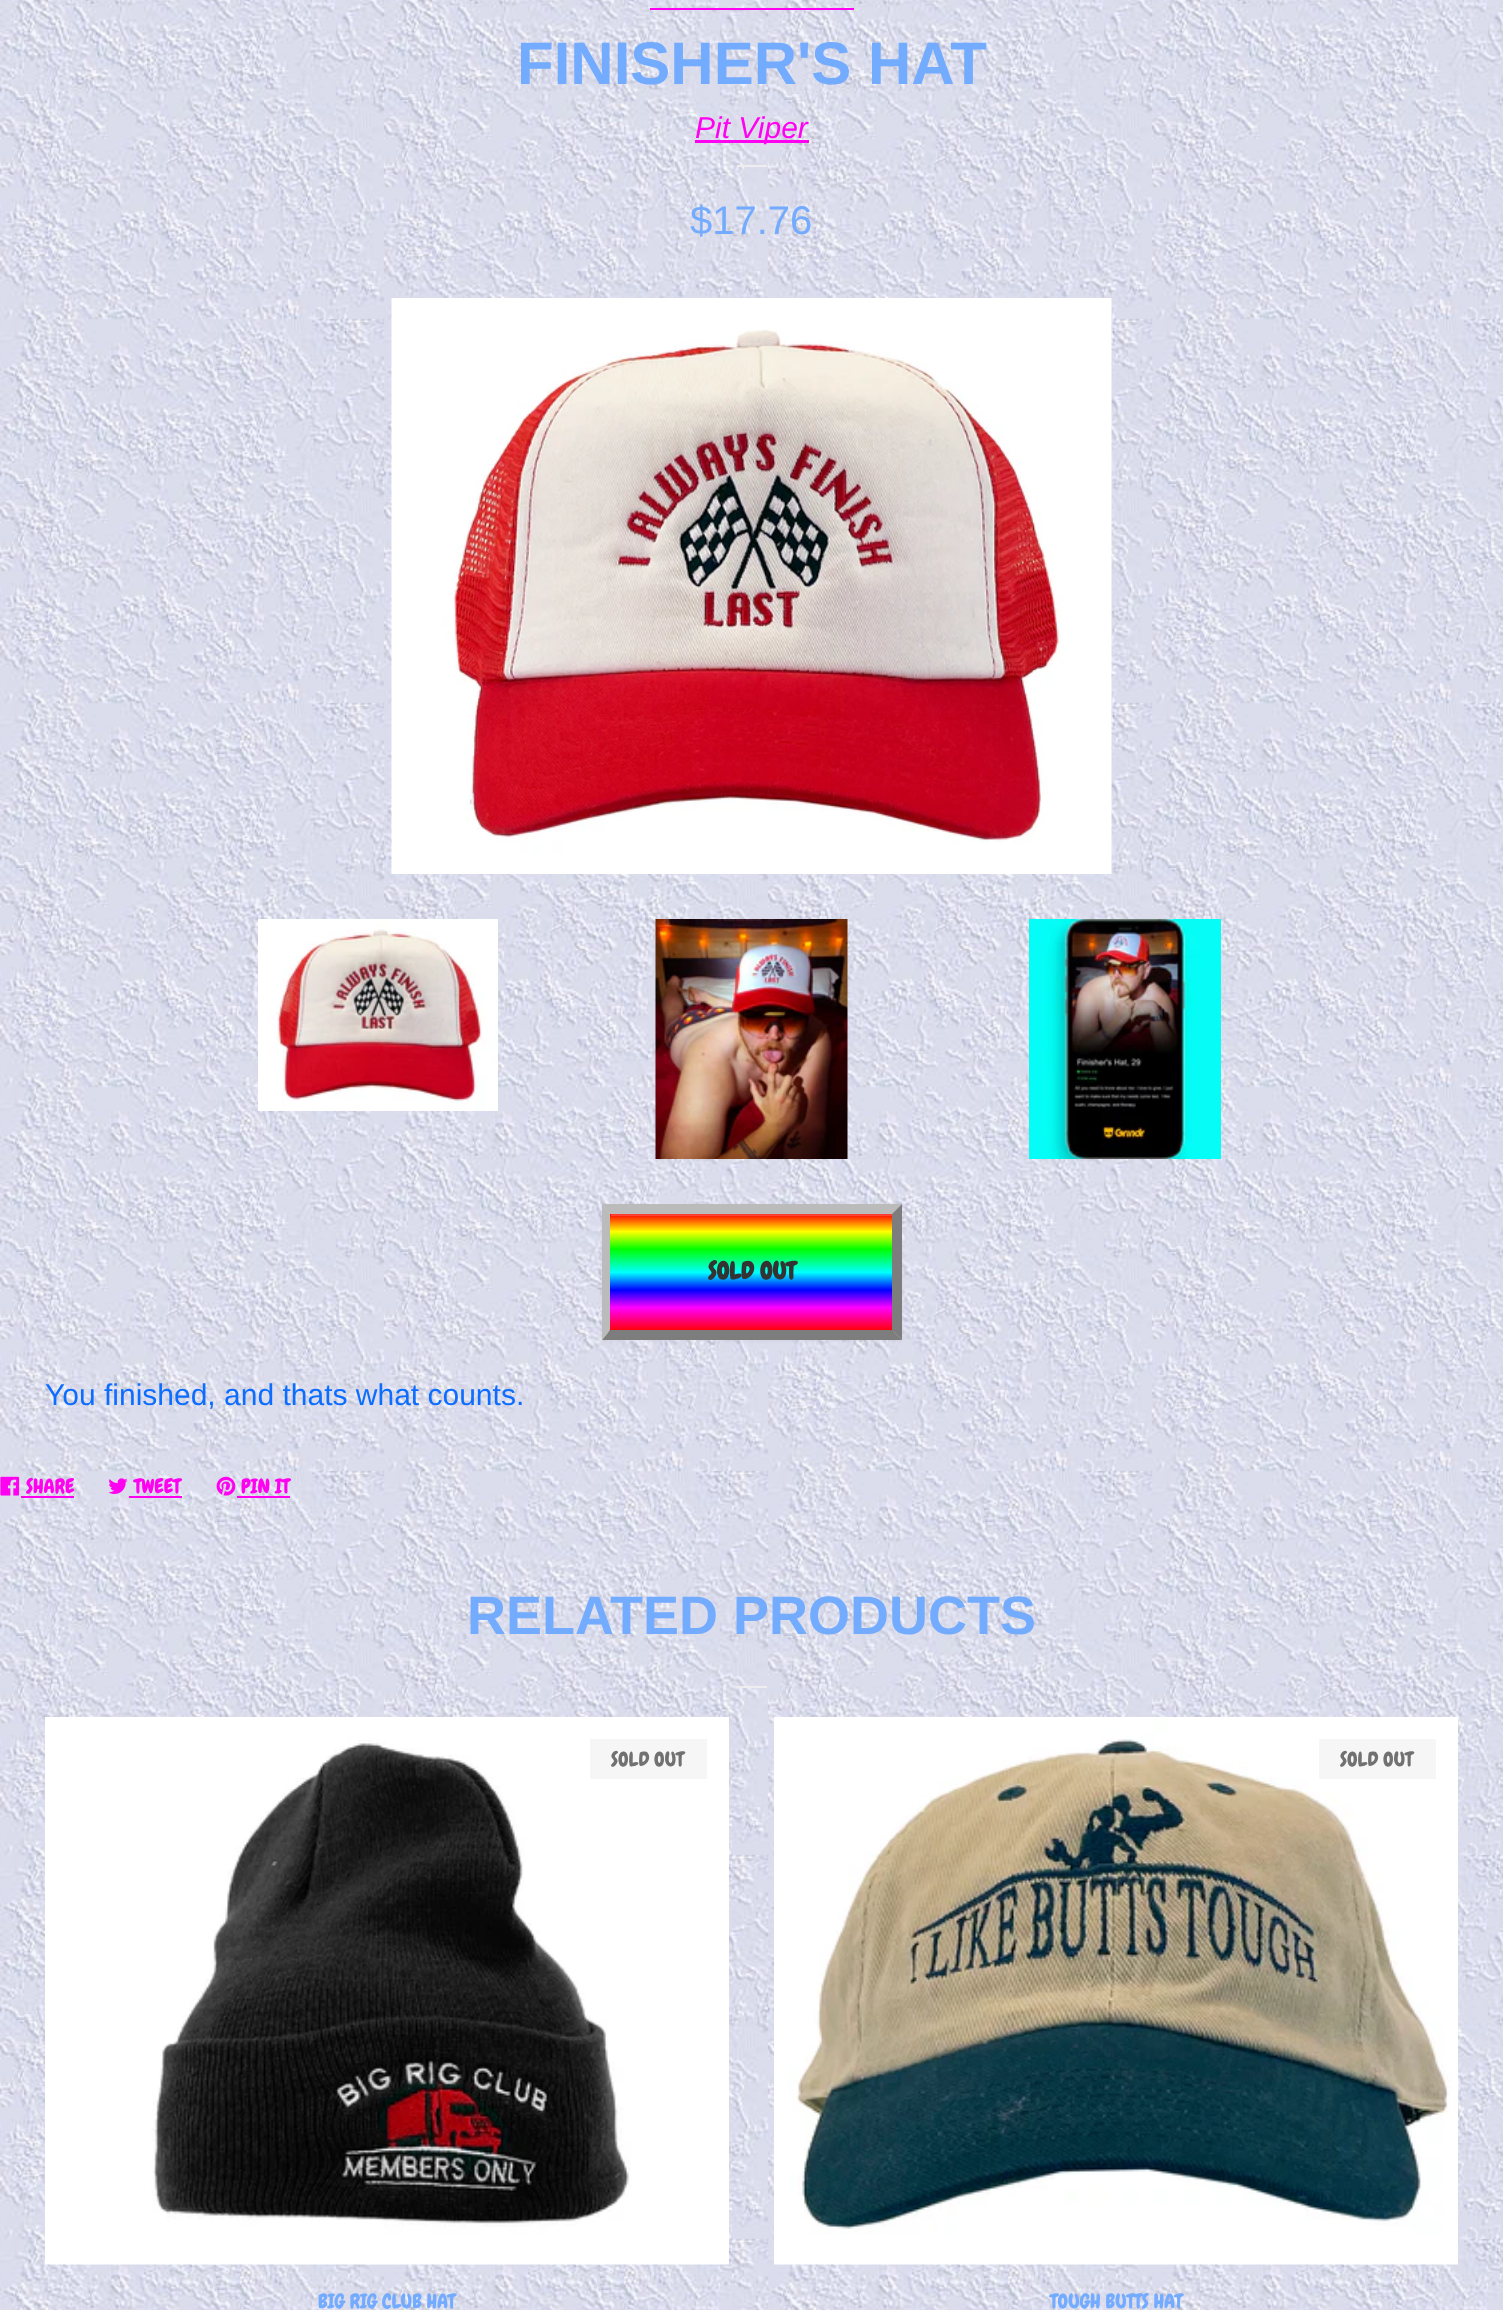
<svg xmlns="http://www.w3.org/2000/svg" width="1503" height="2310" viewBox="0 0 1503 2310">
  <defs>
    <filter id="blur1" x="-50%" y="-200%" width="200%" height="500%"><feGaussianBlur stdDeviation="1.5"/></filter>
    <linearGradient id="g1" gradientUnits="userSpaceOnUse" x1="611" y1="1214" x2="611" y2="1331"><stop offset="0" stop-color="#ff0000"/><stop offset="0.15" stop-color="#ffff00"/><stop offset="0.3" stop-color="#00ff00"/><stop offset="0.5" stop-color="#00ffff"/><stop offset="0.65" stop-color="#0000ff"/><stop offset="0.8" stop-color="#ff00ff"/><stop offset="1" stop-color="#ff0000"/></linearGradient>
  </defs>
  <rect width="100%" height="100%" fill="#ffffff"/>
  <image x="0" y="0" width="1503" height="2310" href="img1.png"/>
  <rect x="650" y="8" width="204" height="2" fill="#ff00f1"/>
  <text x="517" y="84" font-family="Liberation Sans" font-size="60" font-weight="bold" fill="#73abff">FINISHER'S HAT</text>
  <rect x="695" y="140" width="114" height="3" fill="#ff00f1"/>
  <text x="695" y="138" font-family="Liberation Sans" font-size="30" font-style="italic" fill="#ff00f1">Pit Viper</text>
  <rect x="737" y="165" width="30" height="2" fill="#eeeeee"/>
  <text x="690" y="234" font-family="Liberation Sans" font-size="40" fill="#73abff">$17.76</text>
  <image x="391" y="298" width="721" height="576" href="img2.png"/>
  <image x="258" y="919" width="240" height="192" href="img3.png"/>
  <image x="655" y="919" width="193" height="240" href="img4.png"/>
  <image x="1029" y="919" width="192" height="240" href="img5.png"/>
  <rect x="602" y="1206" width="300" height="135" fill="#000000" fill-opacity="0.05" filter="url(#blur1)"/>
  <rect x="609" y="1214" width="284" height="117" fill="url(#g1)"/>
  <rect x="611" y="1214" width="282" height="2" fill="#ffffff" fill-opacity="0.2"/>
  <path d="M602 1204H902L892 1214H610Z" fill="#bbbbbb"/>
  <path d="M902 1204V1340L892 1330V1214Z" fill="#7d7d7d"/>
  <path d="M902 1340H602L610 1330H892Z" fill="#7d7d7d"/>
  <path d="M602 1340V1204L610 1214V1330Z" fill="#bbbbbb"/>
  <text x="708" y="1279" font-family="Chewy" font-size="24" font-weight="bold" fill="#333333">SOLD OUT</text>
  <text x="45" y="1405" font-family="Liberation Sans" font-size="30" fill="#0d6dff">You finished, and thats what counts.</text>
  <image x="0" y="1476" width="20" height="20" href="img6.png"/>
  <text x="26" y="1493" font-family="Chewy" font-size="20" fill="#ff00f1">SHARE</text>
  <rect x="21" y="1496" width="53" height="2" fill="#ff00f1"/>
  <image x="108" y="1478" width="20" height="16" href="img7.png"/>
  <text x="134" y="1493" font-family="Chewy" font-size="20" fill="#ff00f1">TWEET</text>
  <rect x="129" y="1496" width="53" height="2" fill="#ff00f1"/>
  <image x="216" y="1476" width="20" height="20" href="img8.png"/>
  <text x="241" y="1493" font-family="Chewy" font-size="20" fill="#ff00f1">PIN IT</text>
  <rect x="237" y="1496" width="53" height="2" fill="#ff00f1"/>
  <text x="467" y="1634" font-family="Liberation Sans" font-size="54" font-weight="bold" fill="#73abff">RELATED PRODUCTS</text>
  <rect x="737" y="1686" width="30" height="2" fill="#eeeeee"/>
  <image x="45" y="1717" width="684" height="548" href="img9.png"/>
  <rect x="590" y="1739" width="117" height="40" fill="#f6f6f6"/>
  <text x="611" y="1766" font-family="Chewy" font-size="20" fill="#717171">SOLD OUT</text>
  <text x="318" y="2308" font-family="Chewy" font-size="20" fill="#73abff">BIG RIG CLUB HAT</text>
  <image x="774" y="1717" width="684" height="548" href="img10.png"/>
  <rect x="1319" y="1739" width="117" height="40" fill="#f6f6f6"/>
  <text x="1340" y="1766" font-family="Chewy" font-size="20" fill="#717171">SOLD OUT</text>
  <text x="1050" y="2308" font-family="Chewy" font-size="20" fill="#73abff">TOUGH BUTTS HAT</text>
</svg>
